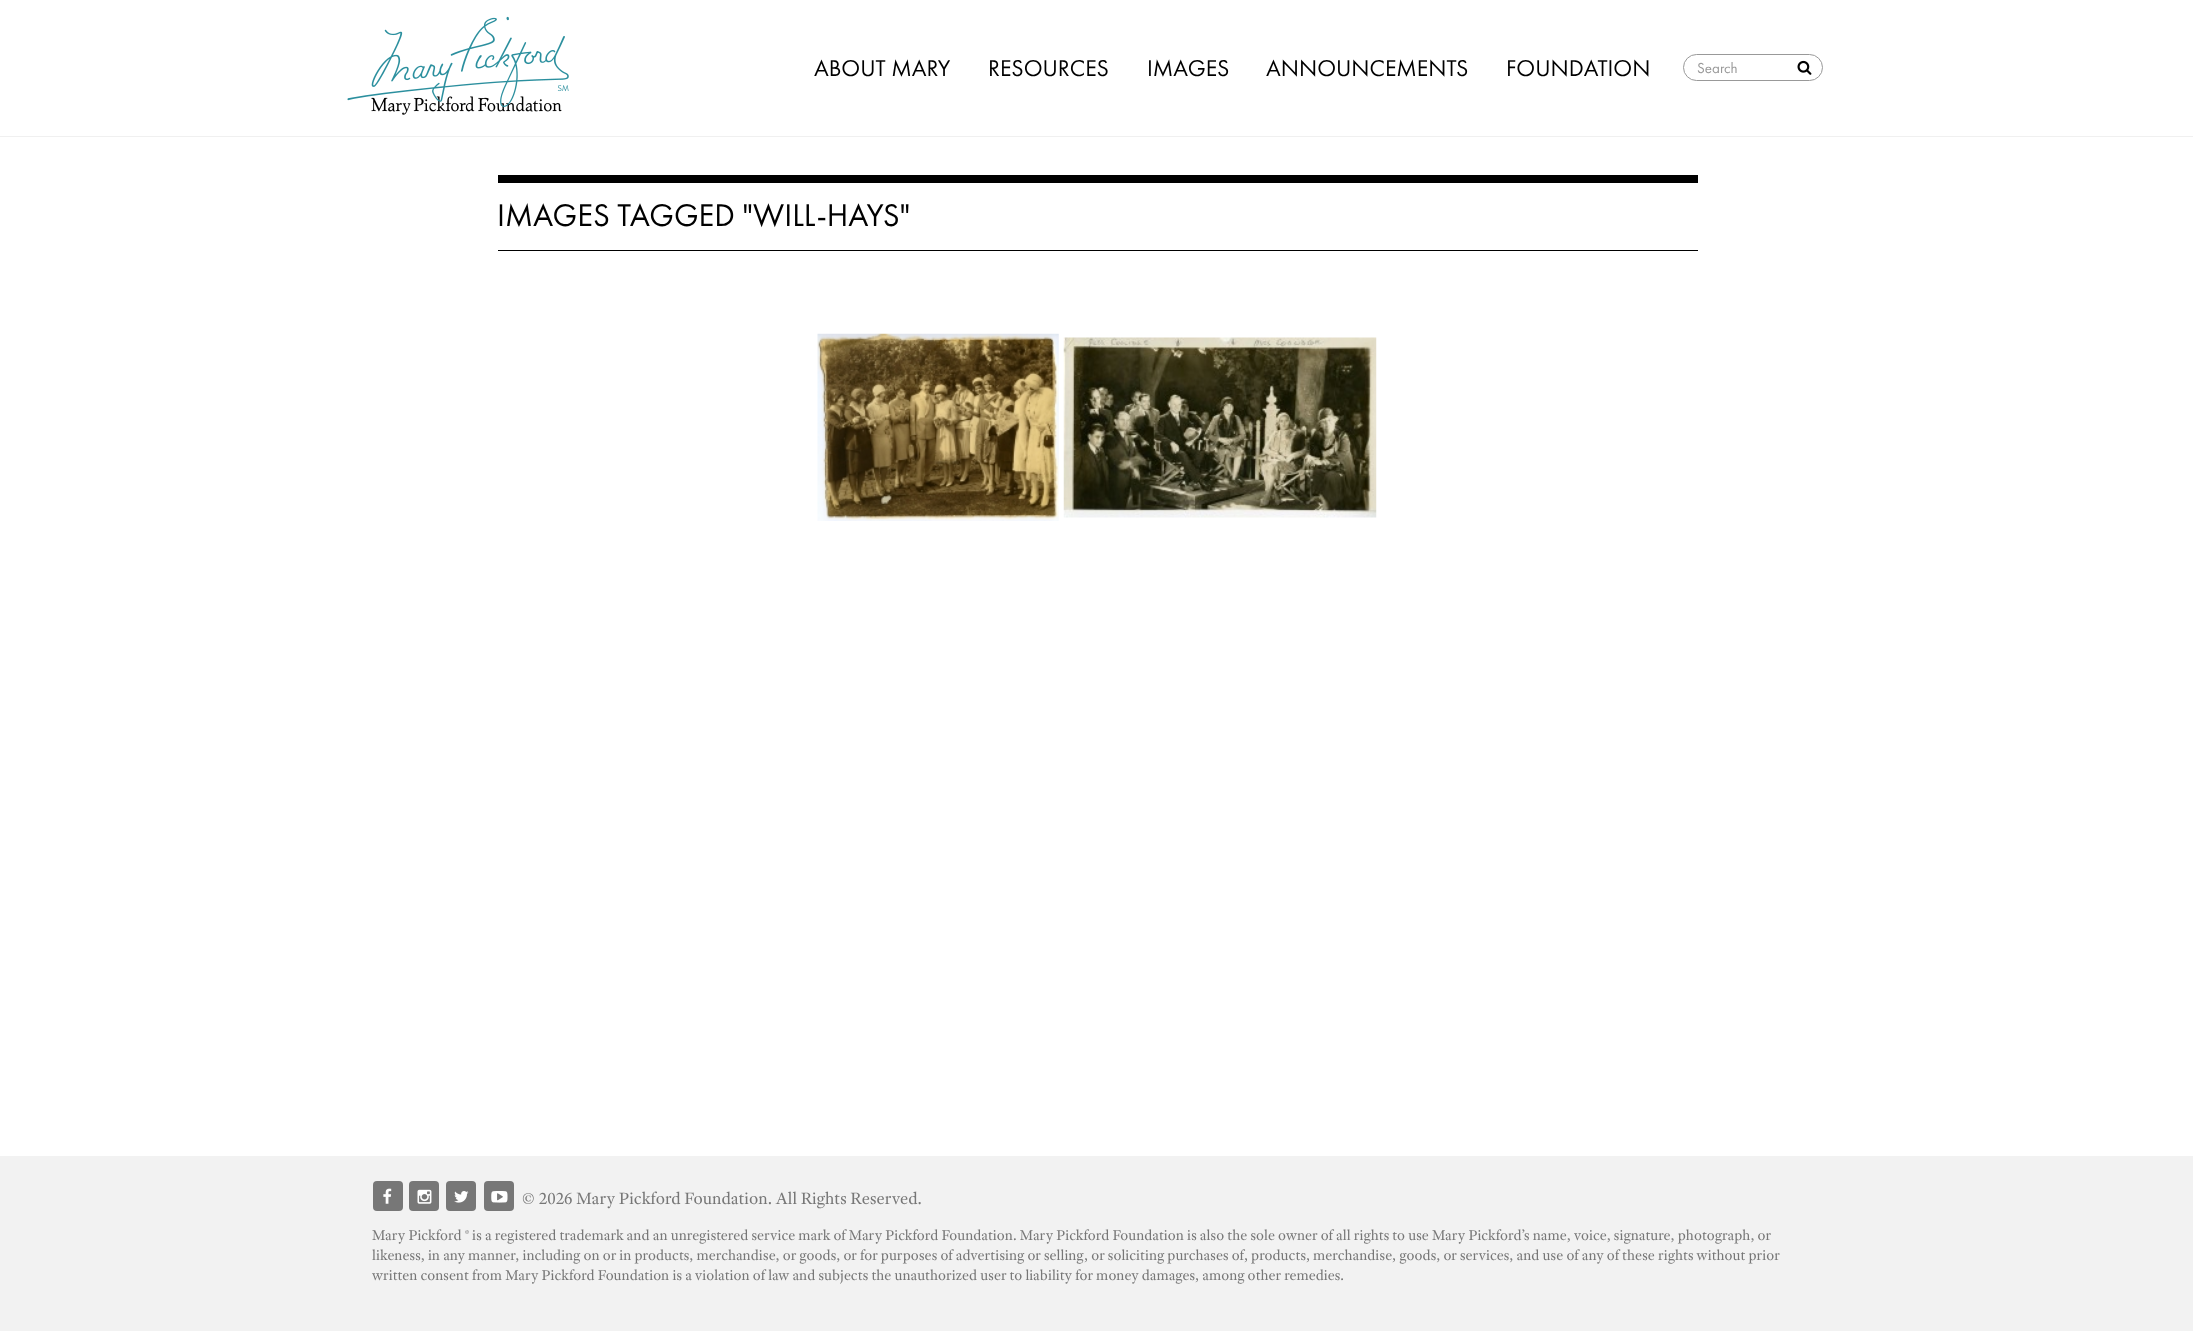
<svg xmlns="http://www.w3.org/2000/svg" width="2193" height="1331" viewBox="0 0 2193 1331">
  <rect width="100%" height="100%" fill="#ffffff"/>
  <rect x="0" y="136" width="2193" height="1" fill="#f0f0f0"/>
  <image x="371" y="96" width="191" height="19" href="img2.png"/>
  <image x="347" y="16" width="222" height="91" href="img1.png"/>
  <text x="814" y="76" font-family="Futura PT" font-size="23.75" fill="#000000">ABOUT MARY</text>
  <text x="988" y="76" font-family="Futura PT" font-size="23.75" fill="#000000">RESOURCES</text>
  <text x="1147" y="76" font-family="Futura PT" font-size="23.75" fill="#000000">IMAGES</text>
  <text x="1266" y="76" font-family="Futura PT" font-size="23.75" fill="#000000">ANNOUNCEMENTS</text>
  <text x="1506" y="76" font-family="Futura PT" font-size="23.75" fill="#000000">FOUNDATION</text>
  <rect x="1683.5" y="54.5" width="139" height="26" rx="13" fill="none" stroke="#999999"/>
  <text x="1697" y="73" font-family="Futura PT" font-size="15" fill="#999999">Search</text>
  <image x="1797" y="60" width="15" height="15" href="img3.png"/>
  <rect x="498" y="175" width="1200" height="8" fill="#000000"/>
  <rect x="498" y="250" width="1200" height="1" fill="#000000"/>
  <text x="497" y="226" font-family="Futura PT" font-size="32.5" fill="#000000">IMAGES TAGGED "WILL-HAYS"</text>
  <image x="817" y="333" width="242" height="188" href="img4.png"/>
  <image x="1063" y="337" width="314" height="181" href="img5.png"/>
  <rect x="0" y="1156" width="2193" height="175" fill="#f2f2f2"/>
  <rect x="373" y="1181" width="30" height="30" rx="4" fill="#777777"/>
  <image x="383" y="1188" width="9" height="16" href="img6.png"/>
  <rect x="409" y="1181" width="30" height="30" rx="4" fill="#777777"/>
  <image x="417" y="1189" width="15" height="15" href="img7.png"/>
  <rect x="446" y="1181" width="30" height="30" rx="4" fill="#777777"/>
  <image x="454" y="1191" width="15" height="12" href="img8.png"/>
  <rect x="484" y="1181" width="30" height="30" rx="4" fill="#777777"/>
  <image x="491" y="1191" width="17" height="12" href="img9.png"/>
  <text x="522" y="1204" font-family="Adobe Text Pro" font-size="17.5" fill="#777777">© 2026 Mary Pickford Foundation. All Rights Reserved.</text>
  <text x="372" y="1240" font-family="Adobe Text Pro" font-size="15" fill="#777777">Mary Pickford ® is a registered trademark and an unregistered service mark of Mary Pickford Foundation. Mary Pickford Foundation is also the sole owner of all rights to use Mary Pickford’s name, voice, signature, photograph, or</text>
  <text x="372" y="1260" font-family="Adobe Text Pro" font-size="15" fill="#777777">likeness, in any manner, including on or in products, merchandise, or goods, or for purposes of advertising or selling, or soliciting purchases of, products, merchandise, goods, or services, and use of any of these rights without prior</text>
  <text x="372" y="1280" font-family="Adobe Text Pro" font-size="15" fill="#777777">written consent from Mary Pickford Foundation is a violation of law and subjects the unauthorized user to liability for money damages, among other remedies.</text>
</svg>
